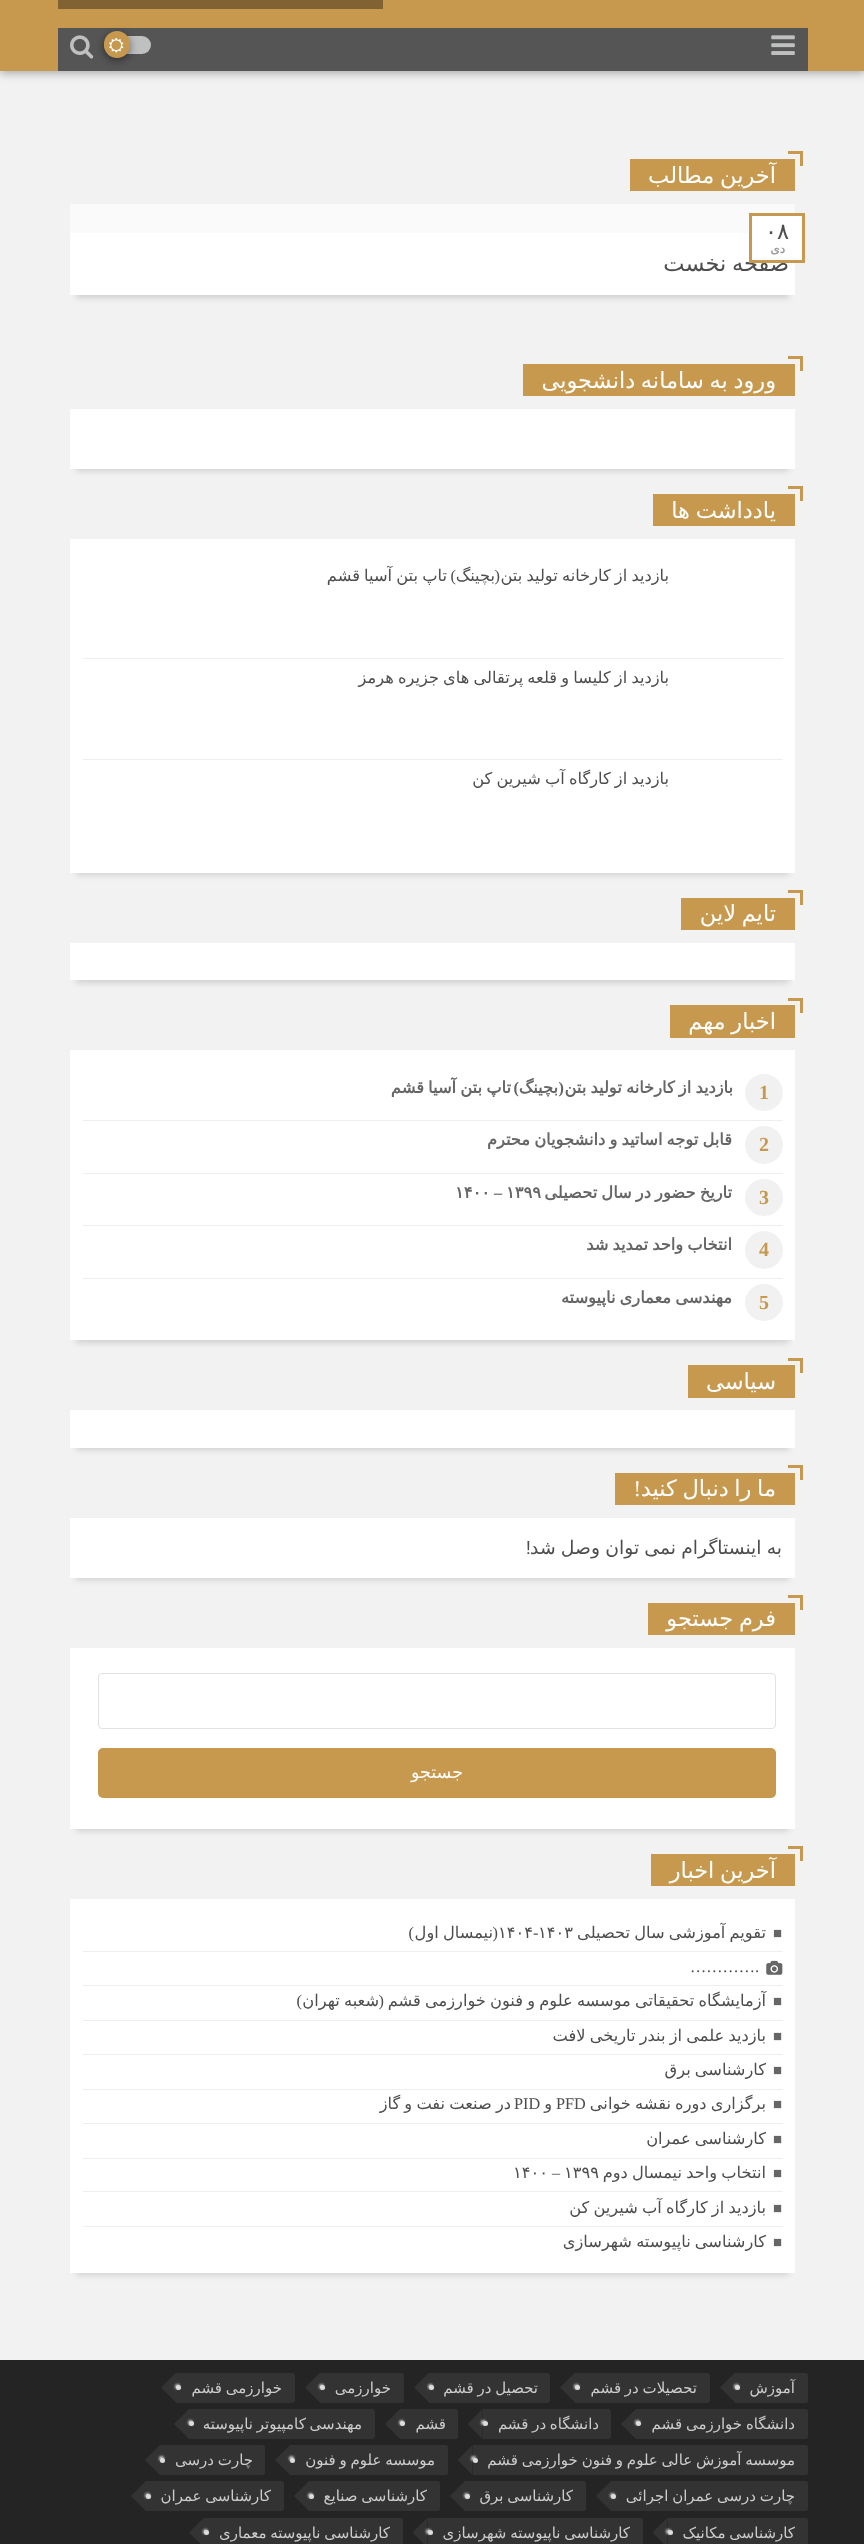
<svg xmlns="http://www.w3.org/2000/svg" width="864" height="2544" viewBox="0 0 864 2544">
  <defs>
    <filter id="blur1" x="-50%" y="-200%" width="200%" height="500%"><feGaussianBlur stdDeviation="6"/></filter>
    <filter id="blur2" x="-50%" y="-200%" width="200%" height="500%"><feGaussianBlur stdDeviation="3"/></filter>
    <filter id="blur3" x="-50%" y="-200%" width="200%" height="500%"><feGaussianBlur stdDeviation="4"/></filter>
    <filter id="blur4" x="-50%" y="-200%" width="200%" height="500%"><feGaussianBlur stdDeviation="1"/></filter>
  </defs>
  <rect width="100%" height="100%" fill="#f2f2f2"/>
  <rect x="0" y="-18" width="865" height="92" fill="#000000" fill-opacity="0.12" filter="url(#blur1)"/>
  <rect x="0" y="-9" width="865" height="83" fill="#000000" fill-opacity="0.16" filter="url(#blur2)"/>
  <rect x="0" y="0" width="864" height="71" fill="#c7994e"/>
  <rect x="58" y="0" width="325" height="9" fill="#816333"/>
  <rect x="58" y="28" width="750" height="43" fill="#555555"/>
  <image x="771" y="35" width="24" height="20" href="img1.png"/>
  <rect x="104" y="36" width="47" height="18" rx="9" fill="#bfc0c0"/>
  <image x="70" y="35" width="24" height="24" href="img3.png"/>
  <rect x="104" y="34" width="26" height="26" rx="13" fill="#000000" fill-opacity="0.5" filter="url(#blur3)"/>
  <rect x="104" y="31" width="26" height="27" rx="13" fill="#c7994e"/>
  <image x="109" y="37" width="15" height="16" href="img2.png"/>
  <rect x="630" y="159" width="165" height="32" fill="#c7994e"/>
  <rect x="788" y="151" width="15" height="3" fill="#c7994e"/>
  <rect x="800" y="151" width="3" height="15" fill="#c7994e"/>
  <text x="776" y="183" word-spacing="-1.5" font-family="DejaVu Sans" font-size="22.5" direction="rtl" fill="#ffffff">آخرین مطالب</text>
  <rect x="76" y="219" width="713" height="79" fill="#cfcfcf" filter="url(#blur2)"/>
  <rect x="70" y="233" width="725" height="62" fill="#ffffff"/>
  <rect x="70" y="204" width="725" height="29" fill="#fafafa"/>
  <text x="789" y="271" word-spacing="-1.5" font-family="DejaVu Sans" font-size="22.5" direction="rtl" fill="#4d4d4d">صفحه نخست</text>
  <rect x="750.5" y="214.5" width="53" height="47" fill="#ffffff" stroke="#c7994e" stroke-width="3"/>
  <text x="765" y="239" font-family="DejaVu Sans" font-size="22.5" fill="#4d4d4d">۰۸</text>
  <text x="785" y="253" font-family="DejaVu Sans" font-size="12" font-weight="bold" direction="rtl" fill="#999999">دی</text>
  <rect x="523" y="364" width="272" height="32" fill="#c7994e"/>
  <rect x="788" y="356" width="15" height="3" fill="#c7994e"/>
  <rect x="800" y="356" width="3" height="15" fill="#c7994e"/>
  <text x="776" y="388" word-spacing="-1.5" font-family="DejaVu Sans" font-size="22.5" direction="rtl" fill="#ffffff">ورود به سامانه دانشجویی</text>
  <rect x="76" y="424" width="713" height="47" fill="#cfcfcf" filter="url(#blur2)"/>
  <rect x="70" y="409" width="725" height="60" fill="#ffffff"/>
  <rect x="653" y="494" width="142" height="32" fill="#c7994e"/>
  <rect x="788" y="486" width="15" height="3" fill="#c7994e"/>
  <rect x="800" y="486" width="3" height="15" fill="#c7994e"/>
  <text x="776" y="518" word-spacing="-1.5" font-family="DejaVu Sans" font-size="22.5" direction="rtl" fill="#ffffff">یادداشت ها</text>
  <rect x="76" y="554" width="713" height="321" fill="#cfcfcf" filter="url(#blur2)"/>
  <rect x="70" y="539" width="725" height="334" fill="#ffffff"/>
  <rect x="83" y="658" width="700" height="1" fill="#eeeeee"/>
  <text x="669" y="581" word-spacing="-1" font-family="DejaVu Sans" font-size="16.25" direction="rtl" fill="#4d4d4d">بازدید از کارخانه تولید بتن</text>
  <text x="500" y="581" font-family="Liberation Serif" font-size="16.25" direction="rtl" fill="#4d4d4d">(</text>
  <text x="495" y="581" font-family="DejaVu Sans" font-size="16.25" direction="rtl" fill="#4d4d4d">بچینگ</text>
  <text x="456" y="581" font-family="Liberation Serif" font-size="16.25" direction="rtl" fill="#4d4d4d">)</text>
  <text x="447" y="581" word-spacing="-1" font-family="DejaVu Sans" font-size="16.25" direction="rtl" fill="#4d4d4d">تاپ بتن آسیا قشم</text>
  <rect x="83" y="759" width="700" height="1" fill="#eeeeee"/>
  <text x="669" y="683" word-spacing="-1" font-family="DejaVu Sans" font-size="16.25" direction="rtl" fill="#4d4d4d">بازدید از کلیسا و قلعه پرتقالی های جزیره هرمز</text>
  <text x="669" y="784" word-spacing="-1" font-family="DejaVu Sans" font-size="16.25" direction="rtl" fill="#4d4d4d">بازدید از کارگاه آب شیرین کن</text>
  <rect x="681" y="898" width="114" height="32" fill="#c7994e"/>
  <rect x="788" y="890" width="15" height="3" fill="#c7994e"/>
  <rect x="800" y="890" width="3" height="15" fill="#c7994e"/>
  <text x="776" y="921" word-spacing="-1.5" font-family="DejaVu Sans" font-size="22.5" direction="rtl" fill="#ffffff">تایم لاین</text>
  <rect x="76" y="958" width="713" height="25" fill="#cfcfcf" filter="url(#blur2)"/>
  <rect x="70" y="943" width="725" height="37" fill="#ffffff"/>
  <rect x="670" y="1005" width="125" height="33" fill="#c7994e"/>
  <rect x="788" y="998" width="15" height="3" fill="#c7994e"/>
  <rect x="800" y="998" width="3" height="15" fill="#c7994e"/>
  <text x="776" y="1029" word-spacing="-1.5" font-family="DejaVu Sans" font-size="22.5" direction="rtl" fill="#ffffff">اخبار مهم</text>
  <rect x="76" y="1065" width="713" height="278" fill="#cfcfcf" filter="url(#blur2)"/>
  <rect x="70" y="1050" width="725" height="290" fill="#ffffff"/>
  <rect x="83" y="1120" width="700" height="1" fill="#eeeeee"/>
  <rect x="745" y="1074" width="38" height="37" rx="18.5" fill="#f1f1f1"/>
  <text x="759" y="1099" font-family="Liberation Serif" font-size="20" font-weight="bold" fill="#c7994e">1</text>
  <text x="733" y="1093" word-spacing="-1" font-family="DejaVu Sans" font-size="16.25" font-weight="bold" direction="rtl" fill="#666666">بازدید از کارخانه تولید بتن</text>
  <text x="564" y="1093" font-family="Liberation Serif" font-size="16.25" font-weight="bold" direction="rtl" fill="#666666">(</text>
  <text x="558" y="1093" font-family="DejaVu Sans" font-size="16.25" font-weight="bold" direction="rtl" fill="#666666">بچینگ</text>
  <text x="519" y="1093" font-family="Liberation Serif" font-size="16.25" font-weight="bold" direction="rtl" fill="#666666">)</text>
  <text x="511" y="1093" word-spacing="-1" font-family="DejaVu Sans" font-size="16.25" font-weight="bold" direction="rtl" fill="#666666">تاپ بتن آسیا قشم</text>
  <rect x="83" y="1173" width="700" height="1" fill="#eeeeee"/>
  <circle cx="764" cy="1145" r="19" fill="#f1f1f1"/>
  <text x="759" y="1151" font-family="Liberation Serif" font-size="20" font-weight="bold" fill="#c7994e">2</text>
  <text x="732" y="1145" word-spacing="-1" font-family="DejaVu Sans" font-size="16.25" font-weight="bold" direction="rtl" fill="#666666">قابل توجه اساتید و دانشجویان محترم</text>
  <rect x="83" y="1225" width="700" height="1" fill="#eeeeee"/>
  <rect x="745" y="1179" width="38" height="37" rx="18.5" fill="#f1f1f1"/>
  <text x="759" y="1204" font-family="Liberation Serif" font-size="20" font-weight="bold" fill="#c7994e">3</text>
  <text x="732" y="1198" word-spacing="-1" font-family="DejaVu Sans" font-size="16.25" font-weight="bold" direction="rtl" fill="#666666">تاریخ حضور در سال تحصیلی</text>
  <text x="506" y="1198" font-family="DejaVu Sans" font-size="16.25" font-weight="bold" fill="#666666">۱۳۹۹</text>
  <text x="494" y="1198" font-family="Liberation Serif" font-size="16.25" font-weight="bold" fill="#666666">–</text>
  <text x="455" y="1198" font-family="DejaVu Sans" font-size="16.25" font-weight="bold" fill="#666666">۱۴۰۰</text>
  <rect x="83" y="1278" width="700" height="1" fill="#eeeeee"/>
  <circle cx="764" cy="1250" r="19" fill="#f1f1f1"/>
  <text x="759" y="1256" font-family="Liberation Serif" font-size="20" font-weight="bold" fill="#c7994e">4</text>
  <text x="732" y="1250" word-spacing="-1" font-family="DejaVu Sans" font-size="16.25" font-weight="bold" direction="rtl" fill="#666666">انتخاب واحد تمدید شد</text>
  <rect x="745" y="1284" width="38" height="37" rx="18.5" fill="#f1f1f1"/>
  <text x="759" y="1309" font-family="Liberation Serif" font-size="20" font-weight="bold" fill="#c7994e">5</text>
  <text x="732" y="1303" word-spacing="-1" font-family="DejaVu Sans" font-size="16.25" font-weight="bold" direction="rtl" fill="#666666">مهندسی معماری ناپیوسته</text>
  <rect x="688" y="1365" width="107" height="33" fill="#c7994e"/>
  <rect x="788" y="1358" width="15" height="3" fill="#c7994e"/>
  <rect x="800" y="1358" width="3" height="15" fill="#c7994e"/>
  <text x="776" y="1389" font-family="DejaVu Sans" font-size="22.5" direction="rtl" fill="#ffffff">سیاسی</text>
  <rect x="76" y="1425" width="713" height="25" fill="#cfcfcf" filter="url(#blur2)"/>
  <rect x="70" y="1410" width="725" height="38" fill="#ffffff"/>
  <rect x="615" y="1473" width="180" height="32" fill="#c7994e"/>
  <rect x="788" y="1465" width="15" height="3" fill="#c7994e"/>
  <rect x="800" y="1465" width="3" height="15" fill="#c7994e"/>
  <text x="776" y="1496" word-spacing="-1.5" font-family="DejaVu Sans" font-size="22.5" direction="rtl" fill="#ffffff">ما را دنبال کنید</text>
  <text x="641" y="1496" font-family="Liberation Serif" font-size="22.5" direction="rtl" fill="#ffffff">!</text>
  <rect x="76" y="1533" width="713" height="47" fill="#cfcfcf" filter="url(#blur2)"/>
  <rect x="70" y="1518" width="725" height="60" fill="#ffffff"/>
  <text x="782" y="1554" word-spacing="-0.75" font-family="DejaVu Sans" font-size="18.75" direction="rtl" fill="#4d4d4d">به اینستاگرام نمی توان وصل شد</text>
  <text x="531" y="1554" font-family="Liberation Sans" font-size="18.75" direction="rtl" fill="#4d4d4d">!</text>
  <rect x="648" y="1603" width="147" height="32" fill="#c7994e"/>
  <rect x="788" y="1595" width="15" height="3" fill="#c7994e"/>
  <rect x="800" y="1595" width="3" height="15" fill="#c7994e"/>
  <text x="776" y="1626" word-spacing="-1.5" font-family="DejaVu Sans" font-size="22.5" direction="rtl" fill="#ffffff">فرم جستجو</text>
  <rect x="76" y="1663" width="713" height="168" fill="#cfcfcf" filter="url(#blur2)"/>
  <rect x="70" y="1648" width="725" height="181" fill="#ffffff"/>
  <rect x="98.5" y="1673.5" width="677" height="55" rx="3.5" fill="none" stroke="#e2e2e2"/>
  <rect x="98" y="1748" width="678" height="50" rx="5" fill="#c7994e"/>
  <text x="463" y="1778" font-family="DejaVu Sans" font-size="17.5" direction="rtl" fill="#ffffff">جستجو</text>
  <rect x="651" y="1854" width="144" height="32" fill="#c7994e"/>
  <rect x="788" y="1846" width="15" height="3" fill="#c7994e"/>
  <rect x="800" y="1846" width="3" height="15" fill="#c7994e"/>
  <text x="776" y="1878" word-spacing="-1.5" font-family="DejaVu Sans" font-size="22.5" direction="rtl" fill="#ffffff">آخرین اخبار</text>
  <rect x="76" y="1914" width="713" height="361" fill="#cfcfcf" filter="url(#blur2)"/>
  <rect x="70" y="1899" width="725" height="374" fill="#ffffff"/>
  <rect x="83" y="1951" width="700" height="1" fill="#eeeeee"/>
  <text x="773" y="1938" font-family="Liberation Sans" font-size="15" fill="#666666">■</text>
  <text x="766" y="1938" word-spacing="-1" font-family="DejaVu Sans" font-size="16.25" direction="rtl" fill="#4d4d4d">تقویم آموزشی سال تحصیلی</text>
  <text x="498" y="1938" font-family="DejaVu Sans" font-size="16.25" fill="#4d4d4d">۱۴۰۴ ۱۴۰۳</text>
  <text x="498" y="1938" font-family="Liberation Serif" font-size="16.25" direction="rtl" fill="#4d4d4d">(</text>
  <text x="493" y="1938" word-spacing="-1" font-family="DejaVu Sans" font-size="16.25" direction="rtl" fill="#4d4d4d">نیمسال اول</text>
  <text x="414" y="1938" font-family="Liberation Serif" font-size="16.25" direction="rtl" fill="#4d4d4d">)</text>
  <text x="533" y="1938" font-family="Liberation Serif" font-size="16.25" fill="#4d4d4d">-</text>
  <rect x="83" y="1985" width="700" height="1" fill="#eeeeee"/>
  <image x="766" y="1960" width="17" height="15" href="img4.png"/>
  <text x="690" y="1972" font-family="Liberation Serif" font-size="16.25" fill="#4d4d4d">………….</text>
  <rect x="83" y="2020" width="700" height="1" fill="#eeeeee"/>
  <text x="773" y="2006" font-family="Liberation Sans" font-size="15" fill="#666666">■</text>
  <text x="766" y="2006" word-spacing="-1" font-family="DejaVu Sans" font-size="16.25" direction="rtl" fill="#4d4d4d">آزمایشگاه تحقیقاتی موسسه علوم و فنون خوارزمی قشم</text>
  <text x="384" y="2006" font-family="Liberation Serif" font-size="16.25" direction="rtl" fill="#4d4d4d">(</text>
  <text x="379" y="2006" word-spacing="-1" font-family="DejaVu Sans" font-size="16.25" direction="rtl" fill="#4d4d4d">شعبه تهران</text>
  <text x="302" y="2006" font-family="Liberation Serif" font-size="16.25" direction="rtl" fill="#4d4d4d">)</text>
  <rect x="83" y="2054" width="700" height="1" fill="#eeeeee"/>
  <text x="773" y="2041" font-family="Liberation Sans" font-size="15" fill="#666666">■</text>
  <text x="766" y="2041" word-spacing="-1" font-family="DejaVu Sans" font-size="16.25" direction="rtl" fill="#4d4d4d">بازدید علمی از بندر تاریخی لافت</text>
  <rect x="83" y="2089" width="700" height="1" fill="#eeeeee"/>
  <text x="773" y="2075" font-family="Liberation Sans" font-size="15" fill="#666666">■</text>
  <text x="766" y="2075" word-spacing="-1" font-family="DejaVu Sans" font-size="16.25" direction="rtl" fill="#4d4d4d">کارشناسی برق</text>
  <rect x="83" y="2123" width="700" height="1" fill="#eeeeee"/>
  <text x="773" y="2109" font-family="Liberation Sans" font-size="15" fill="#666666">■</text>
  <text x="766" y="2109" word-spacing="-1" font-family="DejaVu Sans" font-size="16.25" direction="rtl" fill="#4d4d4d">برگزاری دوره نقشه خوانی</text>
  <text x="556" y="2109" font-family="Liberation Serif" font-size="16.25" fill="#4d4d4d">PFD</text>
  <text x="552" y="2109" font-family="DejaVu Sans" font-size="16.25" direction="rtl" fill="#4d4d4d">و</text>
  <text x="514" y="2109" font-family="Liberation Serif" font-size="16.25" fill="#4d4d4d">PID</text>
  <text x="511" y="2109" word-spacing="-1" font-family="DejaVu Sans" font-size="16.25" direction="rtl" fill="#4d4d4d">در صنعت نفت و گاز</text>
  <rect x="83" y="2158" width="700" height="1" fill="#eeeeee"/>
  <text x="773" y="2144" font-family="Liberation Sans" font-size="15" fill="#666666">■</text>
  <text x="766" y="2144" word-spacing="-1" font-family="DejaVu Sans" font-size="16.25" direction="rtl" fill="#4d4d4d">کارشناسی عمران</text>
  <rect x="83" y="2191" width="700" height="1" fill="#eeeeee"/>
  <text x="773" y="2178" font-family="Liberation Sans" font-size="15" fill="#666666">■</text>
  <text x="766" y="2178" word-spacing="-1" font-family="DejaVu Sans" font-size="16.25" direction="rtl" fill="#4d4d4d">انتخاب واحد نیمسال دوم</text>
  <text x="564" y="2178" font-family="DejaVu Sans" font-size="16.25" fill="#4d4d4d">۱۳۹۹</text>
  <text x="552" y="2178" font-family="Liberation Serif" font-size="16.25" fill="#4d4d4d">–</text>
  <text x="513" y="2178" font-family="DejaVu Sans" font-size="16.25" fill="#4d4d4d">۱۴۰۰</text>
  <rect x="83" y="2226" width="700" height="1" fill="#eeeeee"/>
  <text x="773" y="2213" font-family="Liberation Sans" font-size="15" fill="#666666">■</text>
  <text x="766" y="2213" word-spacing="-1" font-family="DejaVu Sans" font-size="16.25" direction="rtl" fill="#4d4d4d">بازدید از کارگاه آب شیرین کن</text>
  <text x="773" y="2247" font-family="Liberation Sans" font-size="15" fill="#666666">■</text>
  <text x="766" y="2247" word-spacing="-1" font-family="DejaVu Sans" font-size="16.25" direction="rtl" fill="#4d4d4d">کارشناسی ناپیوسته شهرسازی</text>
  <rect x="0" y="2360" width="864" height="184" fill="#242424"/>
  <path d="M735 2373H805.5C807 2373 808 2374 808 2375.5V2400.5C808 2402 807 2403 805.5 2403H735Z" fill="#333333"/>
  <text x="795" y="2393" font-family="DejaVu Sans" font-size="15" direction="rtl" fill="#cccccc">آموزش</text>
  <path d="M735 2372.5V2402.5L720 2387.5Z" fill="#333333"/>
  <rect x="734" y="2384" width="5" height="5" rx="2.5" fill="#cccccc" filter="url(#blur4)"/>
  <circle cx="737.5" cy="2387.5" r="2.5" fill="#dddddd"/>
  <path d="M575 2373H707.5C709 2373 710 2374 710 2375.5V2400.5C710 2402 709 2403 707.5 2403H575Z" fill="#333333"/>
  <text x="697" y="2393" word-spacing="-1" font-family="DejaVu Sans" font-size="15" direction="rtl" fill="#cccccc">تحصیلات در قشم</text>
  <path d="M575 2372.5V2402.5L560 2387.5Z" fill="#333333"/>
  <rect x="574" y="2384" width="5" height="5" rx="2.5" fill="#cccccc" filter="url(#blur4)"/>
  <circle cx="577.5" cy="2387.5" r="2.5" fill="#dddddd"/>
  <path d="M429 2373H547.5C549 2373 550 2374 550 2375.5V2400.5C550 2402 549 2403 547.5 2403H429Z" fill="#333333"/>
  <text x="538" y="2393" word-spacing="-1" font-family="DejaVu Sans" font-size="15" direction="rtl" fill="#cccccc">تحصیل در قشم</text>
  <path d="M429 2372.5V2402.5L414 2387.5Z" fill="#333333"/>
  <rect x="428" y="2384" width="5" height="5" rx="2.5" fill="#cccccc" filter="url(#blur4)"/>
  <circle cx="431.5" cy="2387.5" r="2.5" fill="#dddddd"/>
  <path d="M320 2373H401.5C403 2373 404 2374 404 2375.5V2400.5C404 2402 403 2403 401.5 2403H320Z" fill="#333333"/>
  <text x="391" y="2393" font-family="DejaVu Sans" font-size="15" direction="rtl" fill="#cccccc">خوارزمی</text>
  <path d="M320 2372.5V2402.5L305 2387.5Z" fill="#333333"/>
  <rect x="319" y="2384" width="5" height="5" rx="2.5" fill="#cccccc" filter="url(#blur4)"/>
  <circle cx="322.5" cy="2387.5" r="2.5" fill="#dddddd"/>
  <path d="M176 2373H292.5C294 2373 295 2374 295 2375.5V2400.5C295 2402 294 2403 292.5 2403H176Z" fill="#333333"/>
  <text x="282" y="2393" word-spacing="-1" font-family="DejaVu Sans" font-size="15" direction="rtl" fill="#cccccc">خوارزمی قشم</text>
  <path d="M176 2372.5V2402.5L161 2387.5Z" fill="#333333"/>
  <rect x="175" y="2384" width="5" height="5" rx="2.5" fill="#cccccc" filter="url(#blur4)"/>
  <circle cx="178.5" cy="2387.5" r="2.5" fill="#dddddd"/>
  <path d="M636 2409H805.5C807 2409 808 2410 808 2411.5V2436.5C808 2438 807 2439 805.5 2439H636Z" fill="#333333"/>
  <text x="795" y="2429" word-spacing="-1" font-family="DejaVu Sans" font-size="15" direction="rtl" fill="#cccccc">دانشگاه خوارزمی قشم</text>
  <path d="M636 2409V2439L621 2424Z" fill="#333333"/>
  <rect x="635" y="2420" width="5" height="5" rx="2.5" fill="#cccccc" filter="url(#blur4)"/>
  <circle cx="638.5" cy="2423.5" r="2.5" fill="#dddddd"/>
  <path d="M483 2409H608.5C610 2409 611 2410 611 2411.5V2436.5C611 2438 610 2439 608.5 2439H483Z" fill="#333333"/>
  <text x="599" y="2429" word-spacing="-1" font-family="DejaVu Sans" font-size="15" direction="rtl" fill="#cccccc">دانشگاه در قشم</text>
  <path d="M482.5 2409V2439L467.5 2424Z" fill="#333333"/>
  <rect x="481" y="2420" width="5" height="5" rx="2.5" fill="#cccccc" filter="url(#blur4)"/>
  <circle cx="485.5" cy="2423.5" r="2.5" fill="#dddddd"/>
  <path d="M400 2409H455.5C457 2409 458 2410 458 2411.5V2436.5C458 2438 457 2439 455.5 2439H400Z" fill="#333333"/>
  <text x="446" y="2429" font-family="DejaVu Sans" font-size="15" direction="rtl" fill="#cccccc">قشم</text>
  <path d="M400 2409V2439L385 2424Z" fill="#333333"/>
  <rect x="399" y="2420" width="5" height="5" rx="2.5" fill="#cccccc" filter="url(#blur4)"/>
  <circle cx="402.5" cy="2423.5" r="2.5" fill="#dddddd"/>
  <path d="M189 2409H372.5C374 2409 375 2410 375 2411.5V2436.5C375 2438 374 2439 372.5 2439H189Z" fill="#333333"/>
  <text x="362" y="2429" word-spacing="-1" font-family="DejaVu Sans" font-size="15" direction="rtl" fill="#cccccc">مهندسی کامپیوتر ناپیوسته</text>
  <path d="M189 2409V2439L174 2424Z" fill="#333333"/>
  <rect x="188" y="2420" width="5" height="5" rx="2.5" fill="#cccccc" filter="url(#blur4)"/>
  <circle cx="191.5" cy="2423.5" r="2.5" fill="#dddddd"/>
  <path d="M473 2445H805.5C807 2445 808 2446 808 2447.5V2472.5C808 2474 807 2475 805.5 2475H473Z" fill="#333333"/>
  <text x="795" y="2465" word-spacing="-1" font-family="DejaVu Sans" font-size="15" direction="rtl" fill="#cccccc">موسسه آموزش عالی علوم و فنون خوارزمی قشم</text>
  <path d="M472.5 2445V2475L457.5 2460Z" fill="#333333"/>
  <rect x="471" y="2456" width="5" height="5" rx="2.5" fill="#cccccc" filter="url(#blur4)"/>
  <circle cx="475.5" cy="2460.5" r="2.5" fill="#dddddd"/>
  <path d="M290 2445H445.5C447 2445 448 2446 448 2447.5V2472.5C448 2474 447 2475 445.5 2475H290Z" fill="#333333"/>
  <text x="435" y="2465" word-spacing="-1" font-family="DejaVu Sans" font-size="15" direction="rtl" fill="#cccccc">موسسه علوم و فنون</text>
  <path d="M290 2445V2475L275 2460Z" fill="#333333"/>
  <rect x="289" y="2456" width="5" height="5" rx="2.5" fill="#cccccc" filter="url(#blur4)"/>
  <circle cx="292.5" cy="2460.5" r="2.5" fill="#dddddd"/>
  <path d="M160 2445H262.5C264 2445 265 2446 265 2447.5V2472.5C265 2474 264 2475 262.5 2475H160Z" fill="#333333"/>
  <text x="253" y="2465" word-spacing="-1" font-family="DejaVu Sans" font-size="15" direction="rtl" fill="#cccccc">چارت درسی</text>
  <path d="M160 2445V2475L145 2460Z" fill="#333333"/>
  <rect x="159" y="2456" width="5" height="5" rx="2.5" fill="#cccccc" filter="url(#blur4)"/>
  <circle cx="162.5" cy="2460.5" r="2.5" fill="#dddddd"/>
  <path d="M611 2481H805.5C807 2481 808 2482 808 2483.5V2508.5C808 2510 807 2511 805.5 2511H611Z" fill="#333333"/>
  <text x="795" y="2501" word-spacing="-1" font-family="DejaVu Sans" font-size="15" direction="rtl" fill="#cccccc">چارت درسی عمران اجرائی</text>
  <path d="M611 2481V2511L596 2496Z" fill="#333333"/>
  <rect x="610" y="2493" width="5" height="5" rx="2.5" fill="#cccccc" filter="url(#blur4)"/>
  <circle cx="613.5" cy="2496.5" r="2.5" fill="#dddddd"/>
  <path d="M465 2481H583.5C585 2481 586 2482 586 2483.5V2508.5C586 2510 585 2511 583.5 2511H465Z" fill="#333333"/>
  <text x="573" y="2501" word-spacing="-1" font-family="DejaVu Sans" font-size="15" direction="rtl" fill="#cccccc">کارشناسی برق</text>
  <path d="M465 2481V2511L450 2496Z" fill="#333333"/>
  <rect x="464" y="2493" width="5" height="5" rx="2.5" fill="#cccccc" filter="url(#blur4)"/>
  <circle cx="467.5" cy="2496.5" r="2.5" fill="#dddddd"/>
  <path d="M309 2481H437.5C439 2481 440 2482 440 2483.5V2508.5C440 2510 439 2511 437.5 2511H309Z" fill="#333333"/>
  <text x="427" y="2501" word-spacing="-1" font-family="DejaVu Sans" font-size="15" direction="rtl" fill="#cccccc">کارشناسی صنایع</text>
  <path d="M309 2481V2511L294 2496Z" fill="#333333"/>
  <rect x="308" y="2493" width="5" height="5" rx="2.5" fill="#cccccc" filter="url(#blur4)"/>
  <circle cx="311.5" cy="2496.5" r="2.5" fill="#dddddd"/>
  <path d="M146 2481H281.5C283 2481 284 2482 284 2483.5V2508.5C284 2510 283 2511 281.5 2511H146Z" fill="#333333"/>
  <text x="271" y="2501" word-spacing="-1" font-family="DejaVu Sans" font-size="15" direction="rtl" fill="#cccccc">کارشناسی عمران</text>
  <path d="M146 2481V2511L131 2496Z" fill="#333333"/>
  <rect x="145" y="2493" width="5" height="5" rx="2.5" fill="#cccccc" filter="url(#blur4)"/>
  <circle cx="148.5" cy="2496.5" r="2.5" fill="#dddddd"/>
  <path d="M668 2518H805.5C807 2518 808 2519 808 2520.5V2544.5C808 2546 807 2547 805.5 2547H668Z" fill="#333333"/>
  <text x="795" y="2538" word-spacing="-1" font-family="DejaVu Sans" font-size="15" direction="rtl" fill="#cccccc">کارشناسی مکانیک</text>
  <path d="M667.5 2517.5V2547.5L652.5 2532.5Z" fill="#333333"/>
  <rect x="666" y="2529" width="5" height="5" rx="2.5" fill="#cccccc" filter="url(#blur4)"/>
  <circle cx="670.5" cy="2532.5" r="2.5" fill="#dddddd"/>
  <path d="M428 2518H640.5C642 2518 643 2519 643 2520.5V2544.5C643 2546 642 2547 640.5 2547H428Z" fill="#333333"/>
  <text x="630" y="2538" word-spacing="-1" font-family="DejaVu Sans" font-size="15" direction="rtl" fill="#cccccc">کارشناسی ناپیوسته شهرسازی</text>
  <path d="M427.5 2517.5V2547.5L412.5 2532.5Z" fill="#333333"/>
  <rect x="426" y="2529" width="5" height="5" rx="2.5" fill="#cccccc" filter="url(#blur4)"/>
  <circle cx="430.5" cy="2532.5" r="2.5" fill="#dddddd"/>
  <path d="M204 2518H400.5C402 2518 403 2519 403 2520.5V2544.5C403 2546 402 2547 400.5 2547H204Z" fill="#333333"/>
  <text x="390" y="2538" word-spacing="-1" font-family="DejaVu Sans" font-size="15" direction="rtl" fill="#cccccc">کارشناسی ناپیوسته معماری</text>
  <path d="M204 2517.5V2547.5L189 2532.5Z" fill="#333333"/>
  <rect x="203" y="2529" width="5" height="5" rx="2.5" fill="#cccccc" filter="url(#blur4)"/>
  <circle cx="206.5" cy="2532.5" r="2.5" fill="#dddddd"/>
</svg>
